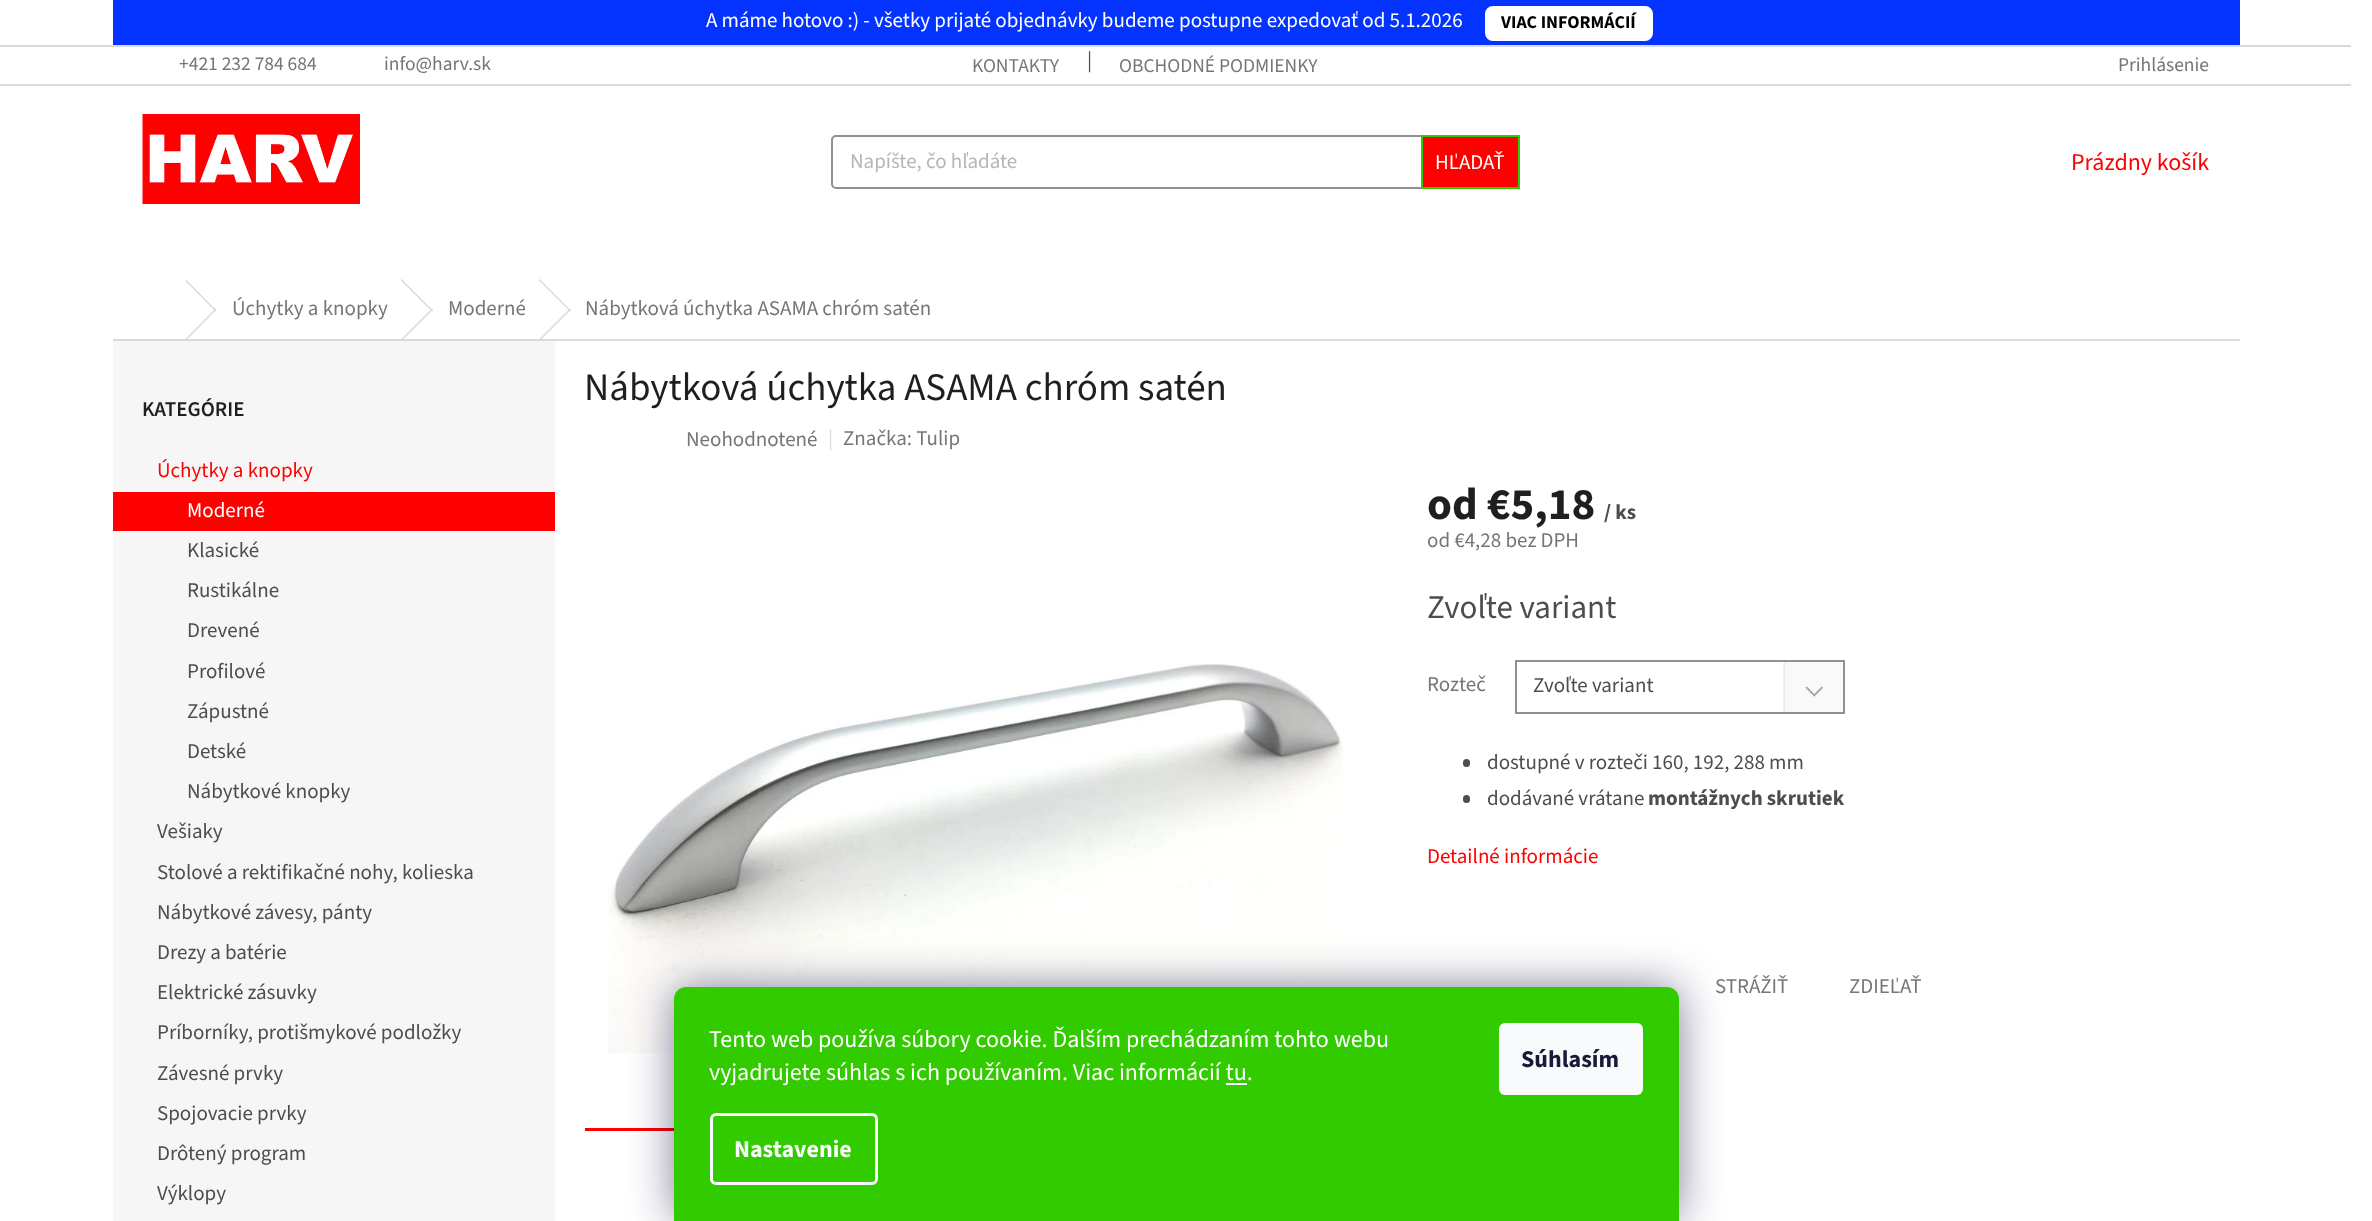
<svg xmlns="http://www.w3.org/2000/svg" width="2372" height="1221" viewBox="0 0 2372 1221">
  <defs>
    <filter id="blur1" x="-50%" y="-200%" width="200%" height="500%"><feGaussianBlur stdDeviation="22.5"/></filter>
  </defs>
  <rect width="100%" height="100%" fill="#ffffff"/>
  <rect x="113" y="0" width="2127" height="45" fill="#0433ff"/>
  <text x="706" y="27" font-family="'Source Sans 3'" font-size="21" fill="#ffffff">A máme hotovo :) - všetky prijaté objednávky budeme postupne expedovať od 5.1.2026</text>
  <rect x="1486" y="7" width="166" height="33" rx="7" fill="#ffffff" stroke="#ffffff" stroke-width="2"/>
  <text x="1501" y="28" font-family="'Source Sans 3'" font-size="18" font-weight="bold" fill="#000000">VIAC INFORMÁCIÍ</text>
  <rect x="0" y="45" width="2351" height="2" fill="#dadada"/>
  <rect x="0" y="84" width="2351" height="2" fill="#dadada"/>
  <text x="179" y="70" font-family="'Source Sans 3'" font-size="19.5" fill="#767676">+421 232 784 684</text>
  <text x="384" y="70" font-family="'Source Sans 3'" font-size="19.5" fill="#767676">info@harv.sk</text>
  <text x="972" y="72" font-family="'Source Sans 3'" font-size="19.5" fill="#767676">KONTAKTY</text>
  <text x="1087" y="67" font-family="'Source Sans 3'" font-size="21" fill="#4d4d4d">|</text>
  <text x="1119" y="72" font-family="'Source Sans 3'" font-size="19.5" fill="#767676">OBCHODNÉ PODMIENKY</text>
  <text x="2118" y="71" font-family="'Source Sans 3'" font-size="19.5" fill="#767676">Prihlásenie</text>
  <image x="142" y="114" width="218" height="90" href="img1.png"/>
  <rect x="832" y="136" width="687" height="52" rx="4" fill="none" stroke="#919191" stroke-width="2"/>
  <text x="850" y="168" font-family="'Source Sans 3'" font-size="21" fill="#b6b6b6">Napíšte, čo hľadáte</text>
  <rect x="1422" y="136" width="97" height="52" fill="#fe0000" stroke="#32cb00" stroke-width="2"/>
  <text x="1435" y="169" font-family="'Source Sans 3'" font-size="21" fill="#ffffff">HĽADAŤ</text>
  <text x="2071" y="170" font-family="'Source Sans 3'" font-size="24" fill="#fe0000">Prázdny košík</text>
  <rect x="113" y="339" width="2127" height="2" fill="#dadada"/>
  <path d="M185.5 281L186.5 280L216.5 310.5L215.5 311.5Z" fill="#dadada"/>
  <path d="M215.5 308.5L216.5 309.5L186.5 340L185.5 339Z" fill="#dadada"/>
  <text x="232" y="315" font-family="'Source Sans 3'" font-size="21" fill="#767676">Úchytky a knopky</text>
  <path d="M400.5 280L401.5 279L433 310.5L432 311.5Z" fill="#dadada"/>
  <path d="M432 308.5L433 309.5L401.5 341L400.5 340Z" fill="#dadada"/>
  <text x="448" y="315" font-family="'Source Sans 3'" font-size="21" fill="#767676">Moderné</text>
  <path d="M538.5 280L539.5 279L571 310.5L570 311.5Z" fill="#dadada"/>
  <path d="M570 308.5L571 309.5L539.5 341L538.5 340Z" fill="#dadada"/>
  <text x="585" y="315" font-family="'Source Sans 3'" font-size="21" fill="#767676">Nábytková úchytka ASAMA chróm satén</text>
  <rect x="113" y="341" width="442" height="880" fill="#f6f6f6"/>
  <text x="142" y="416" font-family="'Source Sans 3'" font-size="21" font-weight="600" fill="#1f1f1f">KATEGÓRIE</text>
  <text x="157" y="477" font-family="'Source Sans 3'" font-size="21" fill="#fe0000">Úchytky a knopky</text>
  <rect x="113" y="492" width="442" height="39" fill="#fe0000"/>
  <text x="187" y="517" font-family="'Source Sans 3'" font-size="21" fill="#ffffff">Moderné</text>
  <text x="187" y="557" font-family="'Source Sans 3'" font-size="21" fill="#4d4d4d">Klasické</text>
  <text x="187" y="597" font-family="'Source Sans 3'" font-size="21" fill="#4d4d4d">Rustikálne</text>
  <text x="187" y="637" font-family="'Source Sans 3'" font-size="21" fill="#4d4d4d">Drevené</text>
  <text x="187" y="678" font-family="'Source Sans 3'" font-size="21" fill="#4d4d4d">Profilové</text>
  <text x="187" y="718" font-family="'Source Sans 3'" font-size="21" fill="#4d4d4d">Zápustné</text>
  <text x="187" y="758" font-family="'Source Sans 3'" font-size="21" fill="#4d4d4d">Detské</text>
  <text x="187" y="798" font-family="'Source Sans 3'" font-size="21" fill="#4d4d4d">Nábytkové knopky</text>
  <text x="157" y="838" font-family="'Source Sans 3'" font-size="21" fill="#4d4d4d">Vešiaky</text>
  <text x="157" y="879" font-family="'Source Sans 3'" font-size="21" fill="#4d4d4d">Stolové a rektifikačné nohy, kolieska</text>
  <text x="157" y="919" font-family="'Source Sans 3'" font-size="21" fill="#4d4d4d">Nábytkové závesy, pánty</text>
  <text x="157" y="959" font-family="'Source Sans 3'" font-size="21" fill="#4d4d4d">Drezy a batérie</text>
  <text x="157" y="999" font-family="'Source Sans 3'" font-size="21" fill="#4d4d4d">Elektrické zásuvky</text>
  <text x="157" y="1039" font-family="'Source Sans 3'" font-size="21" fill="#4d4d4d">Príborníky, protišmykové podložky</text>
  <text x="157" y="1080" font-family="'Source Sans 3'" font-size="21" fill="#4d4d4d">Závesné prvky</text>
  <text x="157" y="1120" font-family="'Source Sans 3'" font-size="21" fill="#4d4d4d">Spojovacie prvky</text>
  <text x="157" y="1160" font-family="'Source Sans 3'" font-size="21" fill="#4d4d4d">Drôtený program</text>
  <text x="157" y="1200" font-family="'Source Sans 3'" font-size="21" fill="#4d4d4d">Výklopy</text>
  <text x="584" y="400" font-family="'Source Sans 3'" font-size="39" fill="#1f1f1f">Nábytková úchytka ASAMA chróm satén</text>
  <text x="686" y="446" font-family="'Source Sans 3'" font-size="21" fill="#767676">Neohodnotené</text>
  <text x="828" y="445" font-family="'Source Sans 3'" font-size="21" fill="#dadada">|</text>
  <text x="843" y="445" font-family="'Source Sans 3'" font-size="21" fill="#767676">Značka: Tulip</text>
  <image x="608" y="663" width="735" height="390" href="img2.png"/>
  <rect x="585" y="1128" width="89" height="3" fill="#fe0000"/>
  <text x="1427" y="519" font-family="'Source Sans 3'" font-size="45" font-weight="bold" fill="#1f1f1f">od €5,18</text>
  <text x="1604" y="519" font-family="'Source Sans 3'" font-size="21" font-weight="bold" fill="#4d4d4d">/ ks</text>
  <text x="1427" y="547" font-family="'Source Sans 3'" font-size="21" fill="#767676">od €4,28 bez DPH</text>
  <text x="1427" y="618" font-family="'Source Sans 3'" font-size="33" fill="#4d4d4d">Zvoľte variant</text>
  <text x="1427" y="691" font-family="'Source Sans 3'" font-size="21" fill="#767676">Rozteč</text>
  <image x="1783" y="662" width="60" height="50" href="img3.png"/>
  <rect x="1516" y="661" width="328" height="52" fill="none" stroke="#919191" stroke-width="2"/>
  <text x="1533" y="692" font-family="'Source Sans 3'" font-size="21" fill="#4d4d4d">Zvoľte variant</text>
  <rect x="1463" y="759" width="7" height="8" rx="3.5" fill="#4d4d4d"/>
  <text x="1487" y="769" font-family="'Source Sans 3'" font-size="21" fill="#4d4d4d">dostupné v rozteči 160, 192, 288 mm</text>
  <rect x="1463" y="795" width="7" height="8" rx="3.5" fill="#4d4d4d"/>
  <text x="1487" y="805" font-family="'Source Sans 3'" font-size="21" fill="#4d4d4d">dodávané vrátane</text>
  <text x="1648" y="805" font-family="'Source Sans 3'" font-size="21" font-weight="bold" fill="#4d4d4d">montážnych skrutiek</text>
  <text x="1427" y="863" font-family="'Source Sans 3'" font-size="21" fill="#fe0000">Detailné informácie</text>
  <text x="1715" y="993" font-family="'Source Sans 3'" font-size="21" fill="#767676">STRÁŽIŤ</text>
  <text x="1849" y="993" font-family="'Source Sans 3'" font-size="21" fill="#767676">ZDIEĽAŤ</text>
  <rect x="674" y="987" width="1005" height="234" rx="12" fill="#1b1939" fill-opacity="0.5" filter="url(#blur1)"/>
  <path d="M686 987H1667C1673.5 987 1679 992.5 1679 999V1221H674V999C674 992.5 679.5 987 686 987Z" fill="#32cb00"/>
  <text x="709" y="1047" font-family="'Source Sans 3'" font-size="24" fill="#ffffff">Tento web používa súbory cookie. Ďalším prechádzaním tohto webu</text>
  <text x="709" y="1080" font-family="'Source Sans 3'" font-size="24" fill="#ffffff">vyjadrujete súhlas s ich používaním. Viac informácií tu.</text>
  <rect x="1226" y="1083" width="21" height="2" fill="#ffffff"/>
  <rect x="711.5" y="1114.5" width="165" height="69" rx="4.5" fill="none" stroke="#f8fafb" stroke-width="3"/>
  <text x="734" y="1157" font-family="'Source Sans 3'" font-size="24" font-weight="bold" fill="#f8fafb">Nastavenie</text>
  <rect x="1499" y="1023" width="144" height="72" rx="6" fill="#f8fafb"/>
  <text x="1521" y="1067" font-family="'Source Sans 3'" font-size="24" font-weight="bold" fill="#1a1937">Súhlasím</text>
</svg>
